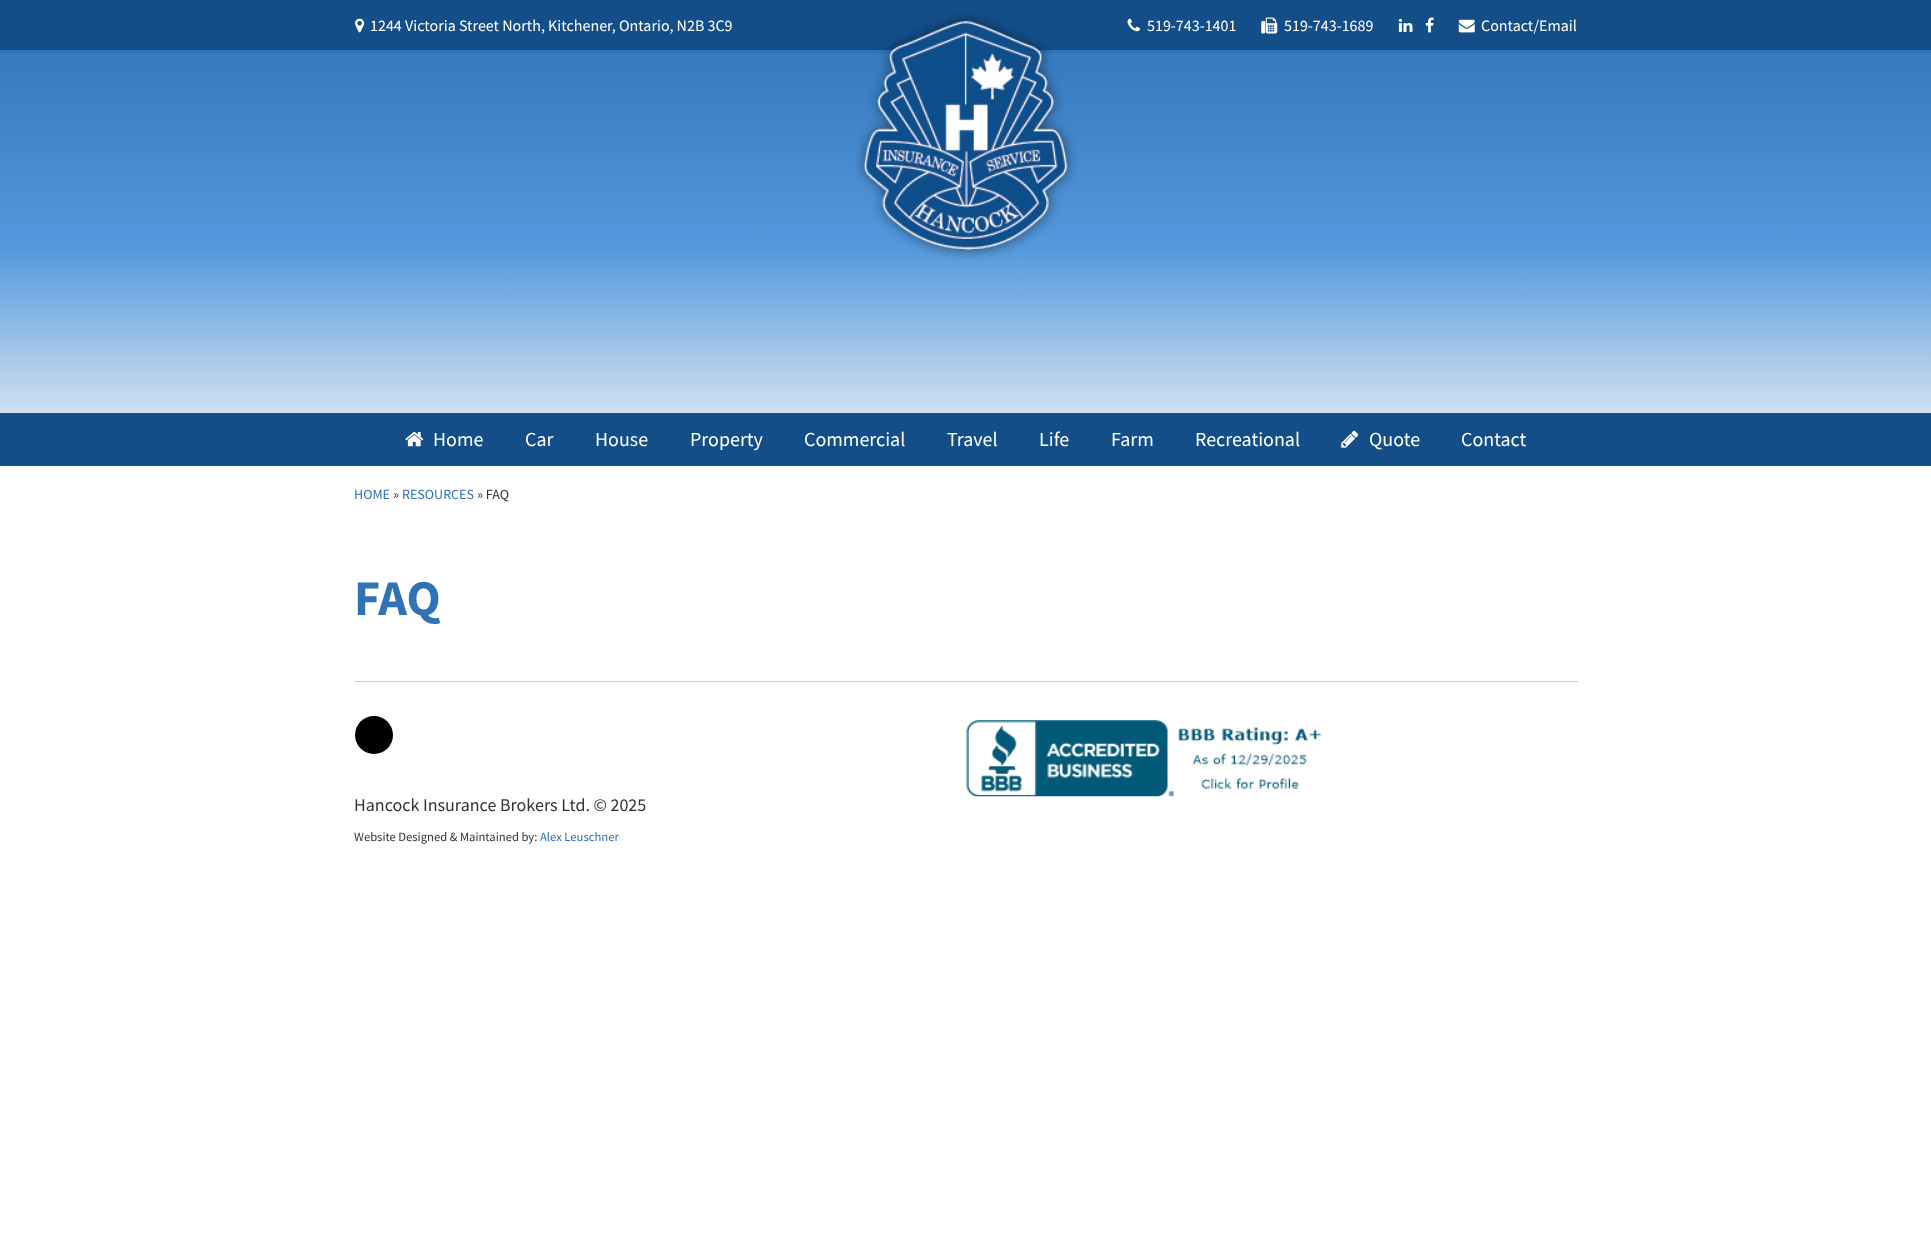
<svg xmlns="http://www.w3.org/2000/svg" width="1931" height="1247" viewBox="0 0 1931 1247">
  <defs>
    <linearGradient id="g1" gradientUnits="userSpaceOnUse" x1="966" y1="0" x2="966" y2="466"><stop offset="0" stop-color="#2f72b6"/><stop offset="0.53" stop-color="#5498dd"/><stop offset="1" stop-color="#f7f7f7"/></linearGradient>
  </defs>
  <rect width="100%" height="100%" fill="#ffffff"/>
  <rect x="0" y="53" width="1931" height="360" fill="url(#g1)"/>
  <rect x="0" y="0" width="1931" height="50" fill="#144e89"/>
  <rect x="0" y="50" width="1931" height="3" fill="#2f72b6"/>
  <image x="855" y="12" width="222" height="248" href="img1.png"/>
  <image x="355" y="18" width="10" height="15" href="img2.png"/>
  <text x="370" y="31" font-family="Source Sans Pro" font-size="16" fill="#ffffff">1244 Victoria Street North, Kitchener, Ontario, N2B 3C9</text>
  <image x="1127" y="18" width="14" height="14" href="img3.png"/>
  <text x="1147" y="31" font-family="Source Sans Pro" font-size="16" fill="#ffffff">519-743-1401</text>
  <image x="1261" y="17" width="17" height="17" href="img4.png"/>
  <text x="1284" y="31" font-family="Source Sans Pro" font-size="16" fill="#ffffff">519-743-1689</text>
  <image x="1398" y="18" width="15" height="14" href="img5.png"/>
  <image x="1425" y="17" width="9" height="16" href="img6.png"/>
  <image x="1458" y="19" width="17" height="14" href="img7.png"/>
  <text x="1481" y="31" font-family="Source Sans Pro" font-size="16" fill="#ffffff">Contact/Email</text>
  <rect x="0" y="413" width="1931" height="53" fill="#144e89"/>
  <image x="405" y="431" width="19" height="16" href="img8.png"/>
  <text x="433" y="446" font-family="Source Sans Pro" font-size="20" fill="#ffffff">Home</text>
  <text x="525" y="446" font-family="Source Sans Pro" font-size="20" fill="#ffffff">Car</text>
  <text x="595" y="446" font-family="Source Sans Pro" font-size="20" fill="#ffffff">House</text>
  <text x="690" y="446" font-family="Source Sans Pro" font-size="20" fill="#ffffff">Property</text>
  <text x="804" y="446" font-family="Source Sans Pro" font-size="20" fill="#ffffff">Commercial</text>
  <text x="947" y="446" font-family="Source Sans Pro" font-size="20" fill="#ffffff">Travel</text>
  <text x="1039" y="446" font-family="Source Sans Pro" font-size="20" fill="#ffffff">Life</text>
  <text x="1111" y="446" font-family="Source Sans Pro" font-size="20" fill="#ffffff">Farm</text>
  <text x="1195" y="446" font-family="Source Sans Pro" font-size="20" fill="#ffffff">Recreational</text>
  <image x="1341" y="430" width="18" height="18" href="img9.png"/>
  <text x="1369" y="446" font-family="Source Sans Pro" font-size="20" fill="#ffffff">Quote</text>
  <text x="1461" y="446" font-family="Source Sans Pro" font-size="20" fill="#ffffff">Contact</text>
  <text x="354" y="499" font-family="Source Sans Pro" font-size="14" fill="#2f72b6">HOME</text>
  <text x="393" y="499" font-family="Source Sans Pro" font-size="14" fill="#333333">»</text>
  <text x="402" y="499" font-family="Source Sans Pro" font-size="14" fill="#2f72b6">RESOURCES</text>
  <text x="477" y="499" font-family="Source Sans Pro" font-size="14" fill="#333333">» FAQ</text>
  <text x="354" y="615" font-family="Source Sans Pro" font-size="50" font-weight="bold" fill="#2f72b6">FAQ</text>
  <rect x="355" y="681" width="1223" height="1" fill="#cccccc"/>
  <image x="966" y="720" width="356" height="77" href="img10.png"/>
  <circle cx="374" cy="735" r="19" fill="#000000"/>
  <text x="354" y="811" font-family="Source Sans Pro" font-size="18" fill="#333333">Hancock Insurance Brokers Ltd. © 2025</text>
  <text x="354" y="841" font-family="Source Sans Pro" font-size="12.6" fill="#333333">Website Designed &amp; Maintained by:</text>
  <text x="540" y="841" font-family="Source Sans Pro" font-size="12.6" fill="#2f72b6">Alex Leuschner</text>
</svg>
